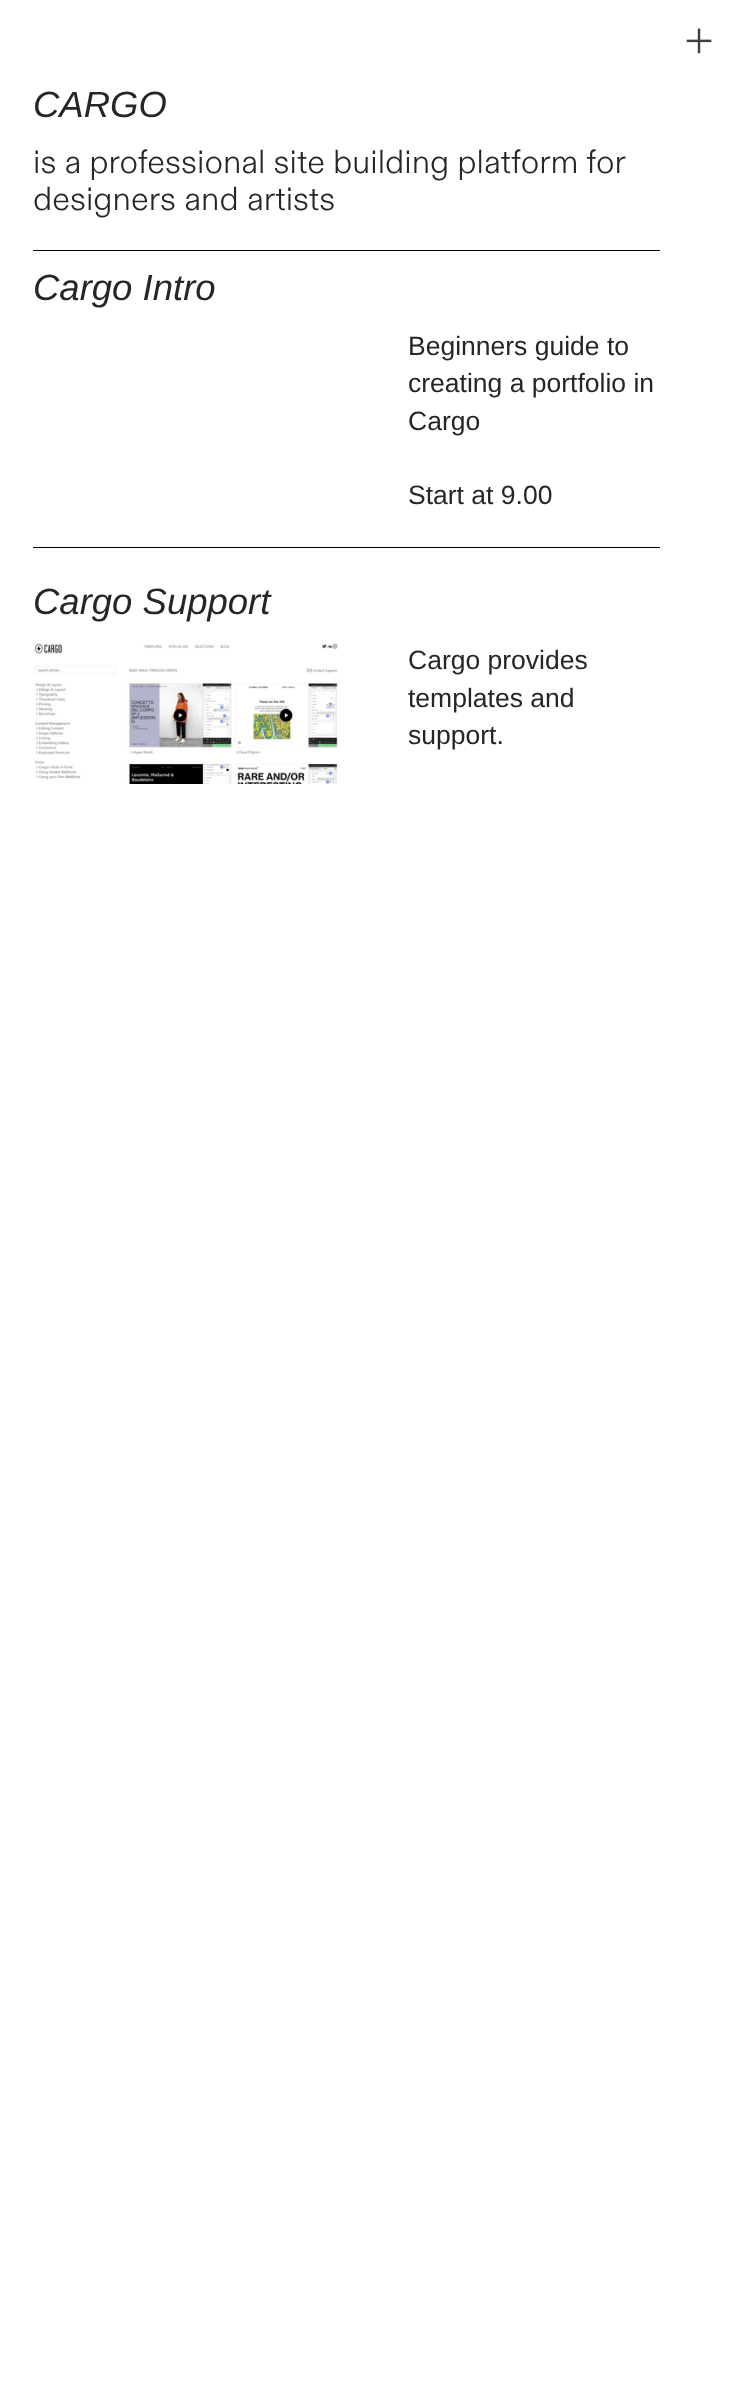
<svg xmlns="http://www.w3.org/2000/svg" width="741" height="2393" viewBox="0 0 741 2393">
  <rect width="100%" height="100%" fill="#ffffff"/>
  <image x="686" y="28" width="26" height="26" href="img1.png"/>
  <text x="33" y="117" font-family="Liberation Sans" font-size="36.5" font-style="italic" fill="#262626">CARGO</text>
  <text x="33" y="173" word-spacing="-0.25" font-family="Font" font-size="33.25" font-weight="300" fill="#262626">is a professional site building platform for</text>
  <text x="33" y="210" font-family="Font" font-size="33.25" font-weight="300" fill="#262626">designers and artists</text>
  <rect x="33" y="250" width="627" height="1" fill="#000000"/>
  <text x="33" y="300" font-family="Liberation Sans" font-size="36.5" font-style="italic" fill="#262626">Cargo Intro</text>
  <text x="408" y="355" font-family="Liberation Sans" font-size="26.5" fill="#262626">Beginners guide to</text>
  <text x="408" y="392" font-family="Liberation Sans" font-size="26.5" fill="#262626">creating a portfolio in</text>
  <text x="408" y="430" font-family="Liberation Sans" font-size="26.5" fill="#262626">Cargo</text>
  <text x="408" y="504" font-family="Liberation Sans" font-size="26.5" fill="#262626">Start at 9.00</text>
  <rect x="33" y="547" width="627" height="1" fill="#000000"/>
  <text x="33" y="614" font-family="Liberation Sans" font-size="36.5" font-style="italic" fill="#262626">Cargo Support</text>
  <image x="34" y="643" width="304" height="141" href="img2.png"/>
  <text x="408" y="669" font-family="Liberation Sans" font-size="26.5" fill="#262626">Cargo provides</text>
  <text x="408" y="707" font-family="Liberation Sans" font-size="26.5" fill="#262626">templates and</text>
  <text x="408" y="744" font-family="Liberation Sans" font-size="26.5" fill="#262626">support.</text>
</svg>
